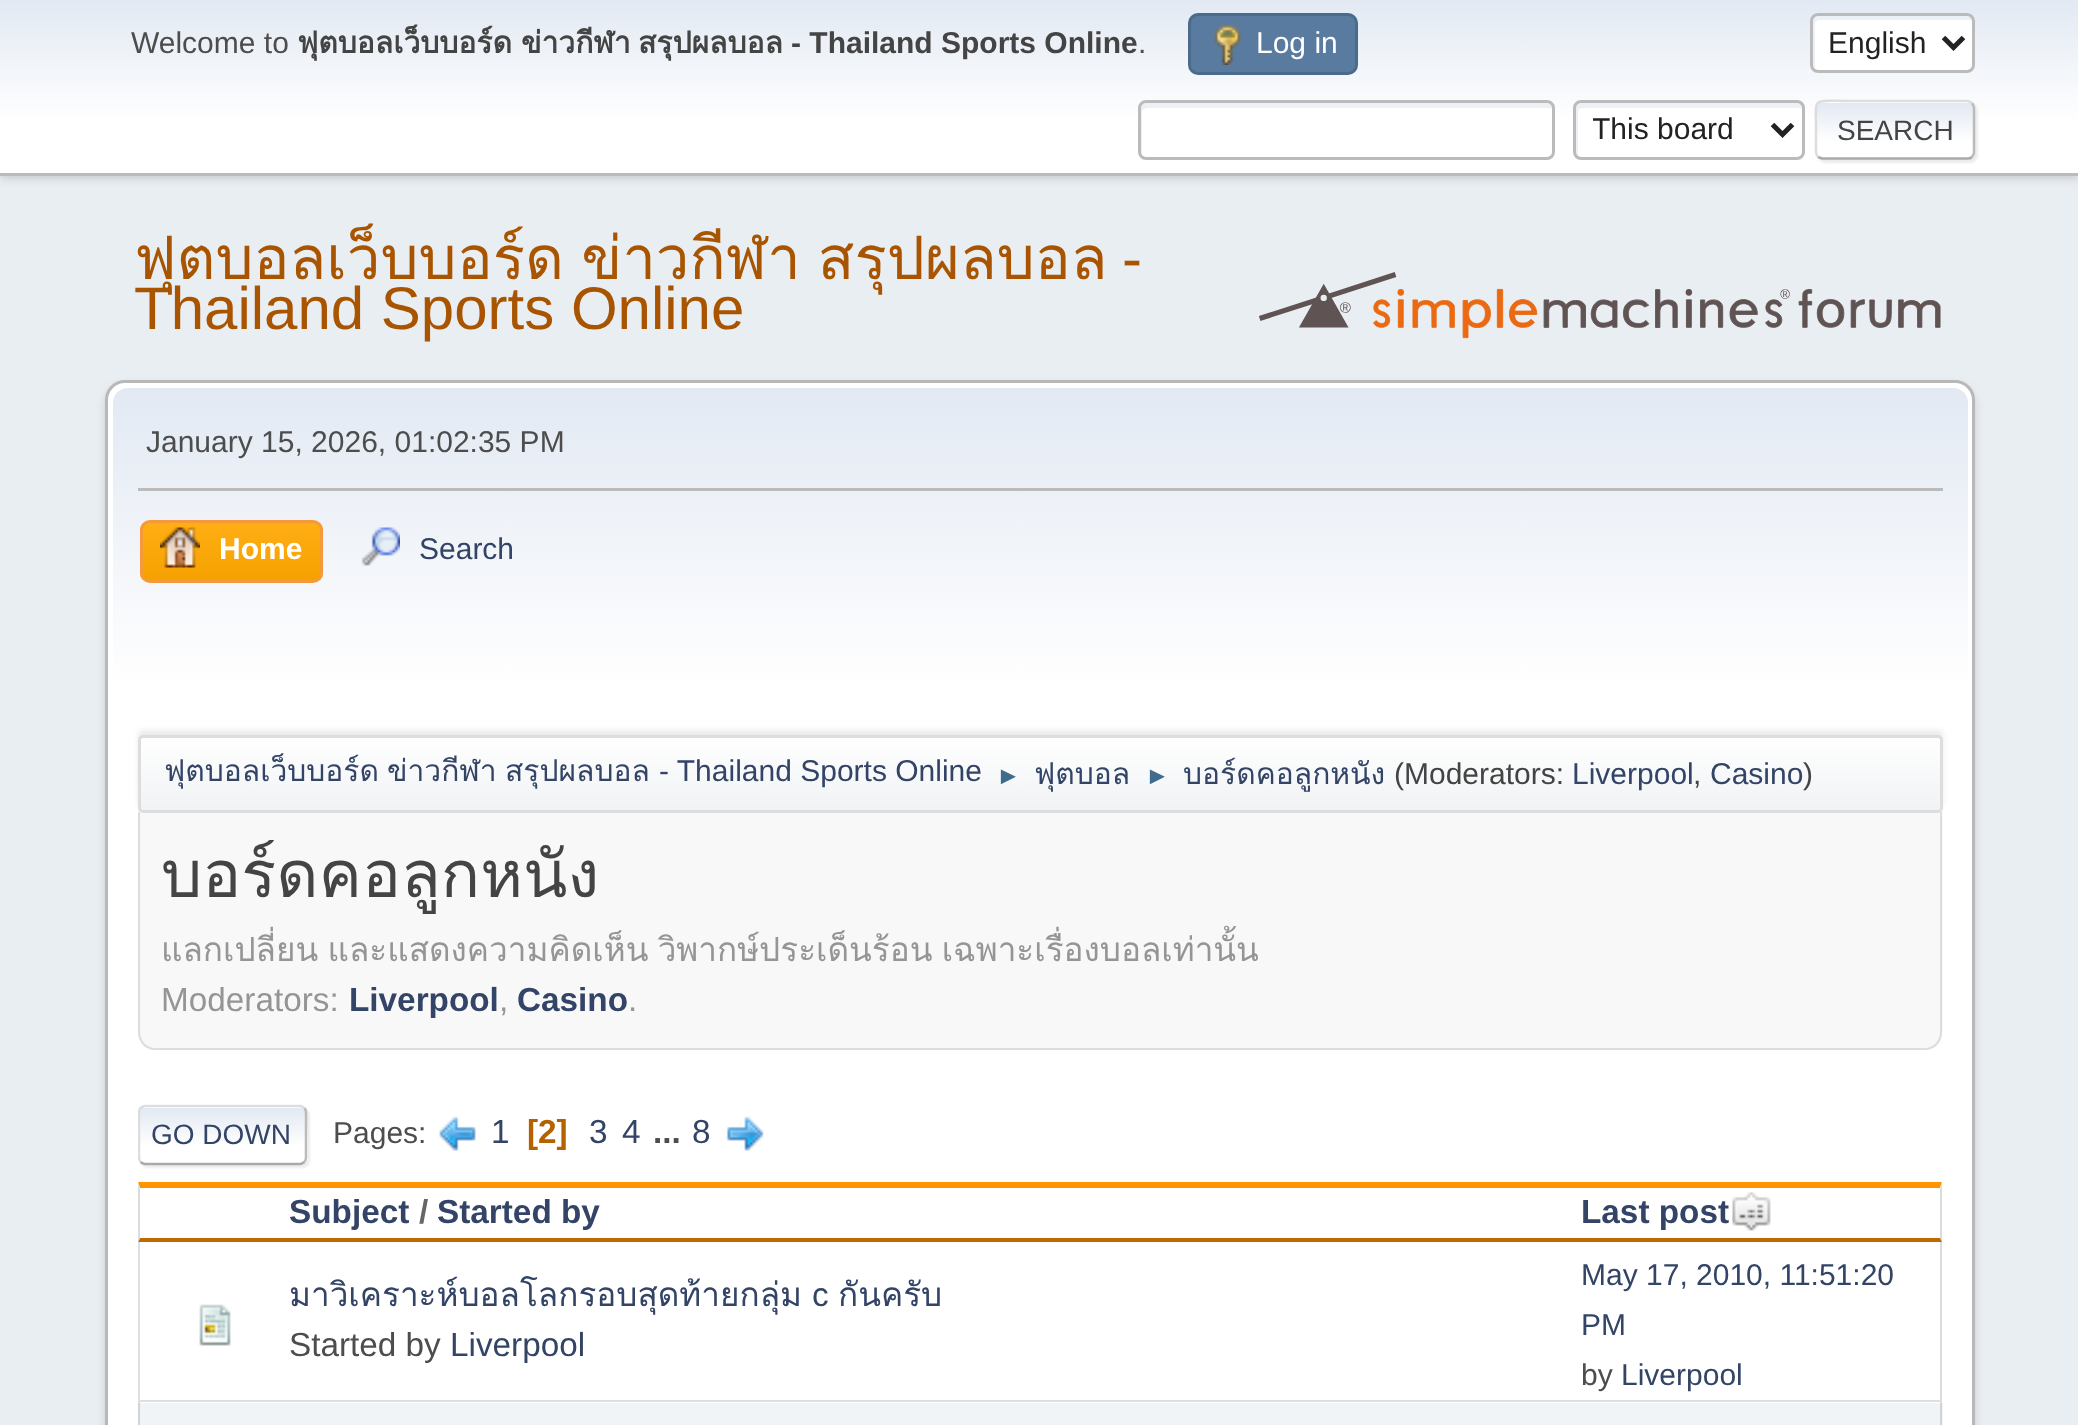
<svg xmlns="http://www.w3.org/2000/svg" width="2078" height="1425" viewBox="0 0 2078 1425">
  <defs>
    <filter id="blur1" x="-50%" y="-200%" width="200%" height="500%"><feGaussianBlur stdDeviation="5"/></filter>
    <linearGradient id="g1" gradientUnits="userSpaceOnUse" x1="1040" y1="0" x2="1040" y2="173"><stop offset="0" stop-color="#e2e9f3"/><stop offset="0.7" stop-color="#ffffff"/></linearGradient>
    <clipPath id="clip1"><rect x="1593" y="110" width="165" height="40"/></clipPath>
    <filter id="blur2" x="-50%" y="-200%" width="200%" height="500%"><feGaussianBlur stdDeviation="1"/></filter>
    <clipPath id="clip2"><rect x="1815" y="100" width="160" height="60" rx="8"/></clipPath>
    <linearGradient id="g2" gradientUnits="userSpaceOnUse" x1="1895" y1="103" x2="1895" y2="158"><stop offset="0" stop-color="#e2e9f3"/><stop offset="0.7" stop-color="#ffffff"/></linearGradient>
    <linearGradient id="g3" gradientUnits="userSpaceOnUse" x1="1895" y1="158" x2="1895" y2="213"><stop offset="0" stop-color="#e2e9f3"/><stop offset="0.7" stop-color="#ffffff"/></linearGradient>
    <filter id="blur3" x="-50%" y="-200%" width="200%" height="500%"><feGaussianBlur stdDeviation="4"/></filter>
    <linearGradient id="g4" gradientUnits="userSpaceOnUse" x1="1040" y1="387" x2="1040" y2="818"><stop offset="0" stop-color="#e2e9f3"/><stop offset="0.7" stop-color="#ffffff"/></linearGradient>
    <clipPath id="clip3"><rect x="140" y="520" width="183" height="63" rx="10"/></clipPath>
    <linearGradient id="g5" gradientUnits="userSpaceOnUse" x1="231" y1="523" x2="231" y2="580"><stop offset="0" stop-color="#ffae14"/><stop offset="1" stop-color="#f5a100"/></linearGradient>
    <filter id="blur4" x="-50%" y="-200%" width="200%" height="500%"><feGaussianBlur stdDeviation="2.5"/></filter>
    <clipPath id="clip4"><rect x="138" y="735" width="1805" height="78" rx="5"/></clipPath>
    <linearGradient id="g6" gradientUnits="userSpaceOnUse" x1="1040" y1="737" x2="1040" y2="810"><stop offset="0" stop-color="#ffffff"/><stop offset="0.95" stop-color="#f1f3f5"/></linearGradient>
    <clipPath id="clip5"><rect x="138" y="1105" width="170" height="60" rx="8"/></clipPath>
    <linearGradient id="g7" gradientUnits="userSpaceOnUse" x1="223" y1="1108" x2="223" y2="1163"><stop offset="0" stop-color="#e2e9f3"/><stop offset="0.7" stop-color="#ffffff"/></linearGradient>
    <linearGradient id="g8" gradientUnits="userSpaceOnUse" x1="223" y1="1163" x2="223" y2="1218"><stop offset="0" stop-color="#e2e9f3"/><stop offset="0.7" stop-color="#ffffff"/></linearGradient>
    <clipPath id="clip6"><rect x="138" y="1088" width="1805" height="95"/></clipPath>
  </defs>
  <rect width="100%" height="100%" fill="#e9eef2"/>
  <rect x="0" y="3" width="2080" height="175" fill="#000000" fill-opacity="0.16" filter="url(#blur1)"/>
  <rect x="0" y="0" width="2078" height="173" fill="url(#g1)"/>
  <rect x="0" y="173" width="2078" height="3" fill="#bbbbbb"/>
  <text x="131" y="53" font-family="Liberation Sans" font-size="30" fill="#4d4d4d">Welcome to</text>
  <text x="297" y="53" font-family="Loma" font-size="30" font-weight="bold" fill="#444444">ฟุตบอลเว็บบอร์ด</text>
  <text x="521" y="53" font-family="Loma" font-size="30" font-weight="bold" fill="#444444">ข่าวกีฬา</text>
  <text x="638" y="53" font-family="Loma" font-size="30" font-weight="bold" fill="#444444">สรุปผลบอล</text>
  <text x="791" y="53" font-family="Liberation Sans" font-size="30" font-weight="bold" fill="#444444">- Thailand Sports Online</text>
  <text x="1138" y="53" font-family="Liberation Sans" font-size="30" fill="#4d4d4d">.</text>
  <rect x="1189.5" y="14.5" width="167" height="59" rx="8.5" fill="#597b9f" stroke="#4a6b8c" stroke-width="3"/>
  <image x="1214" y="25" width="27" height="40" href="img1.png"/>
  <text x="1256" y="53" font-family="Liberation Sans" font-size="30" fill="#ffffff">Log in</text>
  <rect x="1810" y="13" width="165" height="60" rx="8" fill="#ffffff"/>
  <path d="M1820 20H1970L1973 21V20C1973 17 1971 15 1968 15H1818C1815 15 1813 17 1813 20V65C1813 67 1814 68 1815 69V25C1815 22 1817 20 1820 20Z" fill="#ecf1f8"/>
  <rect x="1811.5" y="14.5" width="162" height="57" rx="6.5" fill="none" stroke="#bbbbbb" stroke-width="3"/>
  <path d="M1943.5 37.5L1953.5 47.5L1963.5 37.5" fill="none" stroke="#222222" stroke-width="5"/>
  <text x="1828" y="53" font-family="Liberation Sans" font-size="30" fill="#222222">English</text>
  <rect x="1138" y="100" width="417" height="60" rx="8" fill="#ffffff"/>
  <path d="M1148 108H1550L1553 109V108C1553 105 1551 103 1548 103H1145C1142 103 1140 105 1140 108V153C1140 155 1141 156 1142 157V112C1142 110 1145 108 1148 108Z" fill="#ecf1f8"/>
  <rect x="1139.5" y="101.5" width="414" height="57" rx="6.5" fill="none" stroke="#bbbbbb" stroke-width="3"/>
  <rect x="1573" y="100" width="232" height="60" rx="8" fill="#ffffff"/>
  <path d="M1582 108H1800L1803 109V108C1803 105 1801 103 1798 103H1580C1577 103 1575 105 1575 108V153C1575 155 1576 157 1578 158V112C1578 110 1580 108 1582 108Z" fill="#ecf1f8"/>
  <rect x="1574.5" y="101.5" width="229" height="57" rx="6.5" fill="none" stroke="#bbbbbb" stroke-width="3"/>
  <path d="M1772.5 124.5L1782.5 134.5L1792.5 124.5" fill="none" stroke="#222222" stroke-width="5"/>
  <g clip-path="url(#clip1)">
    <text x="1592" y="139" font-family="Liberation Sans" font-size="30" fill="#222222">This board</text>
  </g>
  <rect x="1818" y="103" width="160" height="60" rx="8" fill="#dddddd" fill-opacity="0.57" filter="url(#blur2)"/>
  <rect x="1815" y="100" width="160" height="60" rx="8" fill="#ffffff"/>
  <g clip-path="url(#clip2)">
    <rect x="1815" y="103" width="160" height="55" fill="url(#g2)"/>
    <rect x="1815" y="158" width="160" height="2" fill="url(#g3)"/>
  </g>
  <path d="M1972 103C1973 104.5 1974 106 1974 107.5V152.5C1974 154 1973 155.5 1972 157" fill="none" stroke="#bbbbbb" stroke-width="2.5"/>
  <path d="M1972 157C1971 158 1969.5 158.5 1968 158.5H1822L1818 157" fill="none" stroke="#aaaaaa" stroke-width="2.5"/>
  <path d="M1818 157C1815 154 1816 148.5 1816 145V130C1816 96 1811 101 1846.5 101H1967.5C1969 101.5 1971 102 1972 103" fill="none" stroke="#dddddd" stroke-width="2.5"/>
  <text x="1837" y="140" font-family="Liberation Sans" font-size="28" fill="#444444">SEARCH</text>
  <text x="134" y="279" word-spacing="-3" font-family="Loma" font-size="60" fill="#a85400">ฟุตบอลเว็บบอร์ด ข่าวกีฬา สรุปผลบอล</text>
  <text x="1122" y="279" font-family="Liberation Sans" font-size="60" fill="#a85400">-</text>
  <text x="134" y="329" font-family="Liberation Sans" font-size="60" fill="#a85400">Thailand Sports Online</text>
  <image x="1259" y="272" width="682" height="67" href="img2.png"/>
  <rect x="105" y="385" width="1870" height="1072" rx="20" fill="#000000" fill-opacity="0.14" filter="url(#blur3)"/>
  <rect x="106.5" y="381.5" width="1867" height="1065" rx="18.5" fill="#ffffff" stroke="#b8b8b8" stroke-width="3"/>
  <path d="M128 388H1953C1961.5 388 1968 394.5 1968 403V818H113V403C113 394.5 119.5 388 128 388Z" fill="url(#g4)"/>
  <rect x="138" y="488" width="1805" height="3" fill="#bbbbbb"/>
  <text x="146" y="452" font-family="Liberation Sans" font-size="30" fill="#4d4d4d">January 15, 2026, 01:02:35 PM</text>
  <g clip-path="url(#clip3)">
    <rect x="140" y="523" width="183" height="57" fill="url(#g5)"/>
  </g>
  <rect x="141.5" y="521.5" width="180" height="60" rx="8.5" fill="none" stroke="#f49a3a" stroke-width="3"/>
  <image x="160" y="527" width="40" height="41" href="img3.png"/>
  <text x="219" y="559" font-family="Liberation Sans" font-size="30" font-weight="bold" fill="#ffffff">Home</text>
  <image x="361" y="527" width="39" height="39" href="img4.png"/>
  <text x="419" y="559" font-family="Liberation Sans" font-size="30" fill="#334466">Search</text>
  <rect x="138" y="730" width="1805" height="78" rx="5" fill="#000000" fill-opacity="0.08" filter="url(#blur4)"/>
  <g clip-path="url(#clip4)">
    <rect x="138" y="738" width="1805" height="72" fill="url(#g6)"/>
  </g>
  <rect x="139.5" y="736.5" width="1802" height="75" rx="3.5" fill="none" stroke="#dddddd" stroke-width="3"/>
  <text x="164" y="781" font-family="Loma" font-size="30" fill="#334466">ฟุตบอลเว็บบอร์ด</text>
  <text x="387" y="781" font-family="Loma" font-size="30" fill="#334466">ข่าวกีฬา</text>
  <text x="505" y="781" font-family="Loma" font-size="30" fill="#334466">สรุปผลบอล</text>
  <text x="659" y="781" font-family="Liberation Sans" font-size="30" fill="#334466">- Thailand Sports Online</text>
  <text x="996" y="784" font-family="Liberation Sans" font-size="25" fill="#3f6b8c">►</text>
  <text x="1034" y="784" font-family="Loma" font-size="30" fill="#334466">ฟุตบอล</text>
  <text x="1145" y="784" font-family="Liberation Sans" font-size="25" fill="#3f6b8c">►</text>
  <text x="1183" y="784" font-family="Loma" font-size="30" fill="#334466">บอร์ดคอลูกหนัง</text>
  <text x="1394" y="784" font-family="Liberation Sans" font-size="30" fill="#444444">(Moderators:</text>
  <text x="1572" y="784" font-family="Liberation Sans" font-size="30" fill="#334466">Liverpool</text>
  <text x="1693" y="784" font-family="Liberation Sans" font-size="30" fill="#444444">,</text>
  <text x="1710" y="784" font-family="Liberation Sans" font-size="30" fill="#334466">Casino</text>
  <text x="1803" y="784" font-family="Liberation Sans" font-size="30" fill="#444444">)</text>
  <path d="M138 813H1943V1032C1943 1042 1935 1050 1925 1050H156C146 1050 138 1042 138 1032Z" fill="#f8f8f8"/>
  <path d="M138 812H1942V1032C1942 1042 1935 1050 1925 1050H155C145 1050 138 1042 138 1032ZM140 812H1940V1032C1940 1041 1933 1048 1925 1048H155C147 1048 140 1041 140 1032Z" fill="#dddddd" fill-rule="evenodd"/>
  <text x="161" y="897" font-family="Loma" font-size="65" fill="#444444">บอร์ดคอลูกหนัง</text>
  <text x="161" y="961" word-spacing="-2" font-family="Loma" font-size="33.3" fill="#959595">แลกเปลี่ยน และแสดงความคิดเห็น วิพากษ์ประเด็นร้อน เฉพาะเรื่องบอลเท่านั้น</text>
  <text x="161" y="1011" font-family="Liberation Sans" font-size="33.3" fill="#959595">Moderators:</text>
  <text x="349" y="1011" font-family="Liberation Sans" font-size="33.3" font-weight="bold" fill="#334466">Liverpool</text>
  <text x="499" y="1011" font-family="Liberation Sans" font-size="33.3" fill="#959595">,</text>
  <text x="517" y="1011" font-family="Liberation Sans" font-size="33.3" font-weight="bold" fill="#334466">Casino</text>
  <text x="628" y="1011" font-family="Liberation Sans" font-size="33.3" fill="#959595">.</text>
  <rect x="140" y="1108" width="170" height="60" rx="8" fill="#dddddd" fill-opacity="0.57" filter="url(#blur2)"/>
  <rect x="138" y="1105" width="170" height="60" rx="8" fill="#ffffff"/>
  <g clip-path="url(#clip5)">
    <rect x="138" y="1108" width="170" height="55" fill="url(#g7)"/>
    <rect x="138" y="1163" width="170" height="2" fill="url(#g8)"/>
  </g>
  <path d="M304.5 1108C305.5 1109.5 306 1111 306 1112.5V1157.5C306 1159 305.5 1160.5 304.5 1162" fill="none" stroke="#bbbbbb" stroke-width="2.5"/>
  <path d="M304.5 1162C303 1163 301.5 1164 300 1164H145C143.5 1164 142 1163 140.5 1162" fill="none" stroke="#aaaaaa" stroke-width="2.5"/>
  <g clip-path="url(#clip6)">
    <path d="M140.5 1162C139.5 1160.5 139 1159 139 1157.5V1112.5C139 1111 139.5 1109.5 140.5 1108C142 1107 143.5 1106 145 1106H300C301.5 1106 303 1107 304.5 1108" fill="none" stroke="#dddddd" stroke-width="2.5"/>
  </g>
  <text x="151" y="1144" font-family="Liberation Sans" font-size="28" fill="#334466">GO DOWN</text>
  <text x="333" y="1143" font-family="Liberation Sans" font-size="30" fill="#4d4d4d">Pages:</text>
  <image x="439" y="1116" width="37" height="35" href="img5.png"/>
  <text x="491" y="1143" font-family="Liberation Sans" font-size="33.3" fill="#334466">1</text>
  <text x="527" y="1143" font-family="Liberation Sans" font-size="33.3" font-weight="bold" fill="#b46100">[2]</text>
  <text x="589" y="1143" font-family="Liberation Sans" font-size="33.3" fill="#334466">3</text>
  <text x="622" y="1143" font-family="Liberation Sans" font-size="33.3" fill="#334466">4</text>
  <text x="653" y="1143" font-family="Liberation Sans" font-size="33.3" font-weight="bold" fill="#4d4d4d">...</text>
  <text x="692" y="1143" font-family="Liberation Sans" font-size="33.3" fill="#334466">8</text>
  <image x="726" y="1116" width="38" height="35" href="img6.png"/>
  <path d="M138 1182H1942L1940 1188H140Z" fill="#ff9400"/>
  <path d="M1942 1182V1242L1940 1238V1188Z" fill="#dddddd"/>
  <path d="M1942 1242H138L140 1238H1940Z" fill="#bf6900"/>
  <path d="M138 1242V1182L140 1188V1238Z" fill="#dddddd"/>
  <text x="289" y="1223" font-family="Liberation Sans" font-size="33.3" font-weight="bold" fill="#334466">Subject</text>
  <text x="419" y="1223" font-family="Liberation Sans" font-size="33.3" font-weight="bold" fill="#666666">/</text>
  <text x="437" y="1223" font-family="Liberation Sans" font-size="33.3" font-weight="bold" fill="#334466">Started by</text>
  <text x="1581" y="1223" font-family="Liberation Sans" font-size="33.3" font-weight="bold" fill="#334466">Last post</text>
  <image x="1732" y="1192" width="39" height="39" href="img7.png"/>
  <path d="M1942 1242V1402L1940 1400V1242Z" fill="#dcdcdc"/>
  <path d="M1942 1402H138L140 1400H1940Z" fill="#000000" fill-opacity="0.13"/>
  <path d="M138 1402V1242H140V1400Z" fill="#000000" fill-opacity="0.13"/>
  <image x="199" y="1304" width="32" height="42" href="img8.png"/>
  <text x="289" y="1306" font-family="Loma" font-size="33.3" fill="#334466">มาวิเคราะห์บอลโลกรอบสุดท้ายกลุ่ม</text>
  <text x="812" y="1306" font-family="Liberation Sans" font-size="33.3" fill="#334466">c</text>
  <text x="838" y="1306" font-family="Loma" font-size="33.3" fill="#334466">กันครับ</text>
  <text x="289" y="1356" font-family="Liberation Sans" font-size="33.3" fill="#4d4d4d">Started by</text>
  <text x="450" y="1356" font-family="Liberation Sans" font-size="33.3" fill="#334466">Liverpool</text>
  <text x="1581" y="1285" font-family="Liberation Sans" font-size="30" fill="#334466">May 17, 2010, 11:51:20</text>
  <text x="1581" y="1335" font-family="Liberation Sans" font-size="30" fill="#334466">PM</text>
  <text x="1581" y="1385" font-family="Liberation Sans" font-size="30" fill="#4d4d4d">by</text>
  <text x="1621" y="1385" font-family="Liberation Sans" font-size="30" fill="#334466">Liverpool</text>
  <rect x="138" y="1403" width="1805" height="22" fill="#f0f4f7"/>
  <path d="M1942 1402V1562L1940 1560V1402Z" fill="#000000" fill-opacity="0.13"/>
  <path d="M138 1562V1402H140V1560Z" fill="#000000" fill-opacity="0.13"/>
</svg>
